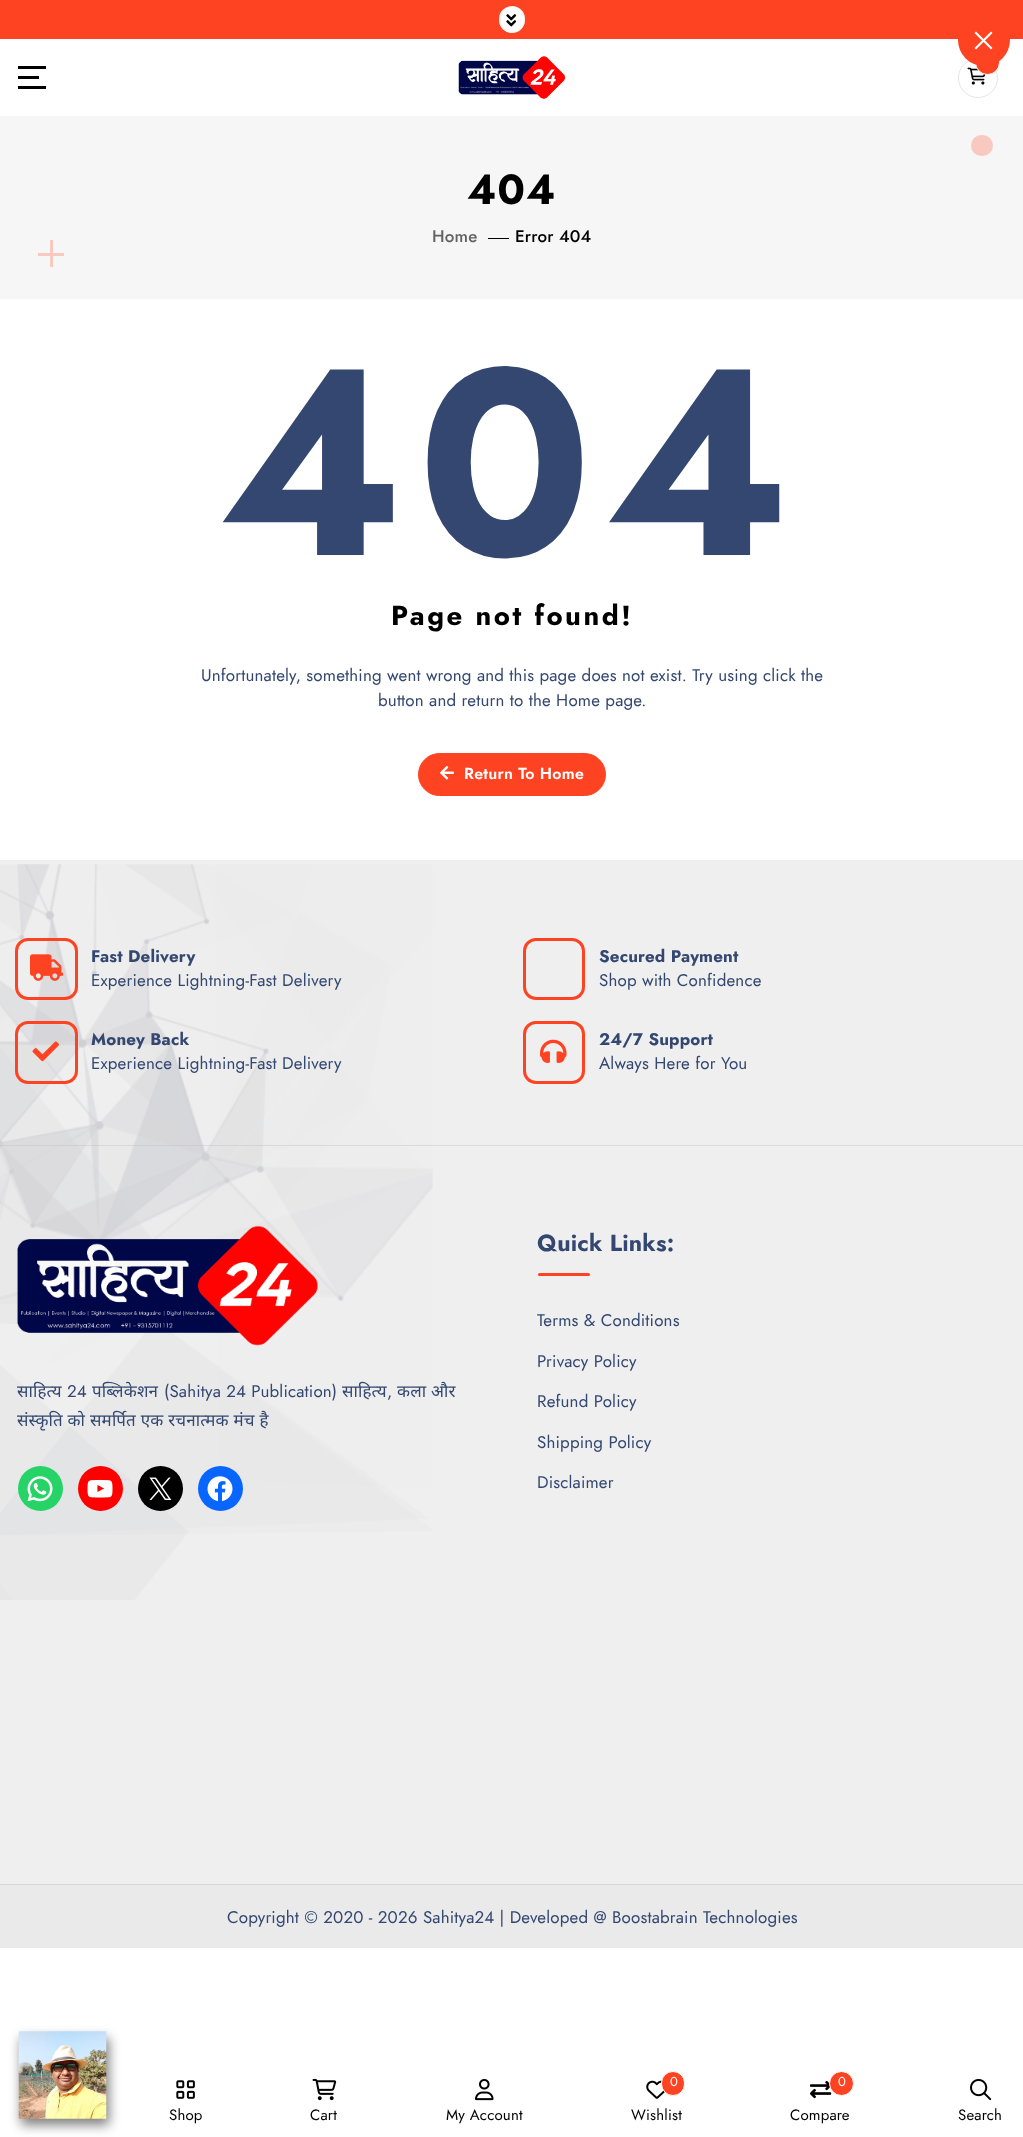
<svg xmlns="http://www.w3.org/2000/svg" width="1023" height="2137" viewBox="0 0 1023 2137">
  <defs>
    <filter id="blur1" x="-50%" y="-200%" width="200%" height="500%"><feGaussianBlur stdDeviation="6"/></filter>
  </defs>
  <rect width="100%" height="100%" fill="#ffffff"/>
  <rect x="0" y="0" width="1023" height="39" fill="#fe4322"/>
  <rect x="499" y="6" width="26" height="27" rx="13" fill="#ffffff"/>
  <rect x="499.5" y="6.5" width="25" height="26" rx="12.5" fill="none" stroke="#bdbdbd" stroke-opacity="0.2"/>
  <image x="506" y="14" width="11" height="13" href="img1.png"/>
  <rect x="18" y="66" width="28" height="3" fill="#000000"/>
  <rect x="18" y="76" width="21" height="3" fill="#000000"/>
  <rect x="18" y="86" width="28" height="3" fill="#000000"/>
  <image x="458" y="56" width="107" height="43" href="img2.png"/>
  <image x="967" y="67" width="19" height="18" href="img3.png"/>
  <circle cx="978" cy="78" r="19.5" fill="none" stroke="#e5e5e5"/>
  <circle cx="987.5" cy="62.5" r="12" fill="#fe4322" stroke="#ffffff"/>
  <circle cx="984" cy="40" r="26" fill="#fe4322"/>
  <path d="M974.5 48L991 31.5L992.5 33L976 49.5Z" fill="#ffffff"/>
  <path d="M991 49.5L974.5 33L976 31.5L992.5 48Z" fill="#ffffff"/>
  <rect x="0" y="116" width="1023" height="183" fill="#f6f6f6"/>
  <rect x="971" y="135" width="22" height="21" rx="10.5" fill="#f8c9c1"/>
  <text x="467" y="204" font-family="Jost" font-size="42" font-weight="bold" letter-spacing="1" fill="#000000">404</text>
  <text x="432" y="242" font-family="Jost" font-size="16.95" font-weight="500" letter-spacing="0.17" fill="#626262">Home</text>
  <rect x="488" y="238" width="21" height="1" fill="#000000"/>
  <text x="515" y="242" font-family="Jost" font-size="16.95" font-weight="500" letter-spacing="0.17" fill="#000000">Error 404</text>
  <rect x="38" y="253" width="26" height="3" fill="#f8c9c1"/>
  <rect x="50" y="240" width="3" height="27" fill="#f8c9c1"/>
  <text x="219" y="555" font-family="Jost" font-size="265" font-weight="bold" letter-spacing="13" fill="#334770">404</text>
  <text x="391" y="625" font-family="Jost" font-size="27.5" font-weight="bold" letter-spacing="2.5" fill="#000000">Page not found!</text>
  <text x="201" y="681" font-family="Jost" font-size="16.95" letter-spacing="0.17" fill="#334770">Unfortunately, something went wrong and this page does not exist. Try using click the</text>
  <text x="378" y="706" font-family="Jost" font-size="16.95" letter-spacing="0.17" fill="#334770">button and return to the Home page.</text>
  <rect x="418.5" y="753.5" width="187" height="42" rx="21" fill="#fe4322" stroke="#fe4322"/>
  <image x="440" y="766" width="14" height="14" href="img4.png"/>
  <text x="464" y="779" font-family="Jost" font-size="16" font-weight="600" letter-spacing="0.25" fill="#ffffff">Return To Home</text>
  <rect x="0" y="860" width="1023" height="1024" fill="#efefef"/>
  <image x="0" y="864" width="433" height="736" href="img5.png"/>
  <rect x="0" y="1145" width="1023" height="1" fill="#bdbdbd" fill-opacity="0.4"/>
  <image x="30" y="954" width="34" height="27" href="img6.png"/>
  <rect x="16.5" y="939.5" width="60" height="59" rx="11.5" fill="none" stroke="#fe4322" stroke-width="3"/>
  <text x="91" y="962" font-family="Jost" font-size="16.95" font-weight="bold" letter-spacing="0.17" fill="#334770">Fast Delivery</text>
  <text x="91" y="986" font-family="Jost" font-size="16.95" letter-spacing="0.17" fill="#334770">Experience Lightning-Fast Delivery</text>
  <rect x="524.5" y="939.5" width="59" height="59" rx="11.5" fill="none" stroke="#fe4322" stroke-width="3"/>
  <text x="599" y="962" font-family="Jost" font-size="16.95" font-weight="bold" letter-spacing="0.17" fill="#334770">Secured Payment</text>
  <text x="599" y="986" font-family="Jost" font-size="16.95" letter-spacing="0.17" fill="#334770">Shop with Confidence</text>
  <image x="32" y="1041" width="27" height="21" href="img7.png"/>
  <rect x="16.5" y="1022.5" width="60" height="60" rx="11.5" fill="none" stroke="#fe4322" stroke-width="3"/>
  <text x="91" y="1045" font-family="Jost" font-size="16.95" font-weight="bold" letter-spacing="0.17" fill="#334770">Money Back</text>
  <text x="91" y="1069" font-family="Jost" font-size="16.95" letter-spacing="0.17" fill="#334770">Experience Lightning-Fast Delivery</text>
  <image x="540" y="1039" width="27" height="24" href="img8.png"/>
  <rect x="524.5" y="1022.5" width="59" height="60" rx="11.5" fill="none" stroke="#fe4322" stroke-width="3"/>
  <text x="599" y="1045" font-family="Jost" font-size="16.95" font-weight="bold" letter-spacing="0.17" fill="#334770">24/7 Support</text>
  <text x="599" y="1069" font-family="Jost" font-size="16.95" letter-spacing="0.17" fill="#334770">Always Here for You</text>
  <image x="17" y="1225" width="301" height="121" href="img9.png"/>
  <text x="17" y="1397" font-family="Noto Sans" font-size="16.95" letter-spacing="0.17" fill="#334770">साहित्य</text>
  <text x="67" y="1397" font-family="Jost" font-size="16.95" letter-spacing="0.17" fill="#334770">24</text>
  <text x="92" y="1397" font-family="Noto Sans" font-size="16.95" letter-spacing="0.17" fill="#334770">पब्लिकेशन</text>
  <text x="164" y="1397" font-family="Jost" font-size="16.95" letter-spacing="0.17" fill="#334770">(Sahitya 24 Publication)</text>
  <text x="342" y="1397" font-family="Noto Sans" font-size="16.95" letter-spacing="0.17" fill="#334770">साहित्य</text>
  <text x="387" y="1397" font-family="Jost" font-size="16.95" letter-spacing="0.17" fill="#334770">,</text>
  <text x="397" y="1397" font-family="Noto Sans" font-size="16.95" letter-spacing="0.17" fill="#334770">कला</text>
  <text x="431" y="1397" font-family="Noto Sans" font-size="16.95" letter-spacing="0.17" fill="#334770">और</text>
  <text x="17" y="1426" word-spacing="0.25" font-family="Noto Sans" font-size="16.95" letter-spacing="0.17" fill="#334770">संस्कृति को समर्पित एक रचनात्मक मंच है</text>
  <circle cx="40.5" cy="1488.5" r="22.5" fill="#25d366"/>
  <image x="27" y="1476" width="26" height="26" href="img10.png"/>
  <circle cx="100.5" cy="1488.5" r="22.5" fill="#ff0000"/>
  <image x="87" y="1479" width="26" height="19" href="img11.png"/>
  <circle cx="160.5" cy="1488.5" r="22.5" fill="#000000"/>
  <image x="149" y="1477" width="23" height="23" href="img12.png"/>
  <circle cx="220.5" cy="1488.5" r="22.5" fill="#0866ff"/>
  <image x="207" y="1476" width="26" height="26" href="img13.png"/>
  <text x="537" y="1251" font-family="Jost" font-size="23.25" font-weight="bold" letter-spacing="0.17" fill="#334770">Quick Links:</text>
  <rect x="538" y="1273" width="52" height="3" rx="1.5" fill="#fe4322"/>
  <text x="537" y="1326" font-family="Jost" font-size="16.95" letter-spacing="0.17" fill="#334770">Terms &amp; Conditions</text>
  <text x="537" y="1367" font-family="Jost" font-size="16.95" letter-spacing="0.17" fill="#334770">Privacy Policy</text>
  <text x="537" y="1407" font-family="Jost" font-size="16.95" letter-spacing="0.17" fill="#334770">Refund Policy</text>
  <text x="537" y="1448" font-family="Jost" font-size="16.95" letter-spacing="0.17" fill="#334770">Shipping Policy</text>
  <text x="537" y="1488" font-family="Jost" font-size="16.95" letter-spacing="0.17" fill="#334770">Disclaimer</text>
  <rect x="0" y="1885" width="1023" height="63" fill="#eaeaea"/>
  <rect x="0" y="1884" width="1023" height="1" fill="#d8d8d8"/>
  <text x="227" y="1923" font-family="Jost" font-size="16.95" letter-spacing="0.17" fill="#334770">Copyright © 2020 - 2026 Sahitya24 | Developed @ Boostabrain Technologies</text>
  <rect x="21" y="2038" width="88" height="87" fill="#000000" fill-opacity="0.5" filter="url(#blur1)"/>
  <image x="18" y="2031" width="89" height="88" href="img14.png"/>
  <image x="176" y="2080" width="19" height="19" href="img15.png"/>
  <text x="169" y="2120" font-family="Jost" font-size="15" letter-spacing="0.17" fill="#000000">Shop</text>
  <image x="312" y="2078" width="25" height="23" href="img16.png"/>
  <text x="310" y="2120" font-family="Jost" font-size="15" letter-spacing="0.17" fill="#000000">Cart</text>
  <image x="475" y="2079" width="19" height="22" href="img17.png"/>
  <text x="446" y="2120" font-family="Jost" font-size="15" letter-spacing="0.17" fill="#000000">My Account</text>
  <image x="646" y="2080" width="19" height="19" href="img18.png"/>
  <rect x="661.5" y="2071.5" width="23" height="24" rx="11.5" fill="#fe4322" stroke="#ffffff"/>
  <text x="670" y="2086" font-family="Jost" font-size="13" letter-spacing="0.17" fill="#ffffff">0</text>
  <text x="631" y="2120" font-family="Jost" font-size="15" letter-spacing="0.17" fill="#000000">Wishlist</text>
  <image x="810" y="2081" width="22" height="18" href="img19.png"/>
  <circle cx="841.5" cy="2083.5" r="12" fill="#fe4322" stroke="#ffffff"/>
  <text x="838" y="2086" font-family="Jost" font-size="13" letter-spacing="0.17" fill="#ffffff">0</text>
  <text x="790" y="2120" font-family="Jost" font-size="15" letter-spacing="0.17" fill="#000000">Compare</text>
  <image x="970" y="2078" width="22" height="23" href="img20.png"/>
  <text x="958" y="2120" font-family="Jost" font-size="15" letter-spacing="0.17" fill="#000000">Search</text>
</svg>
